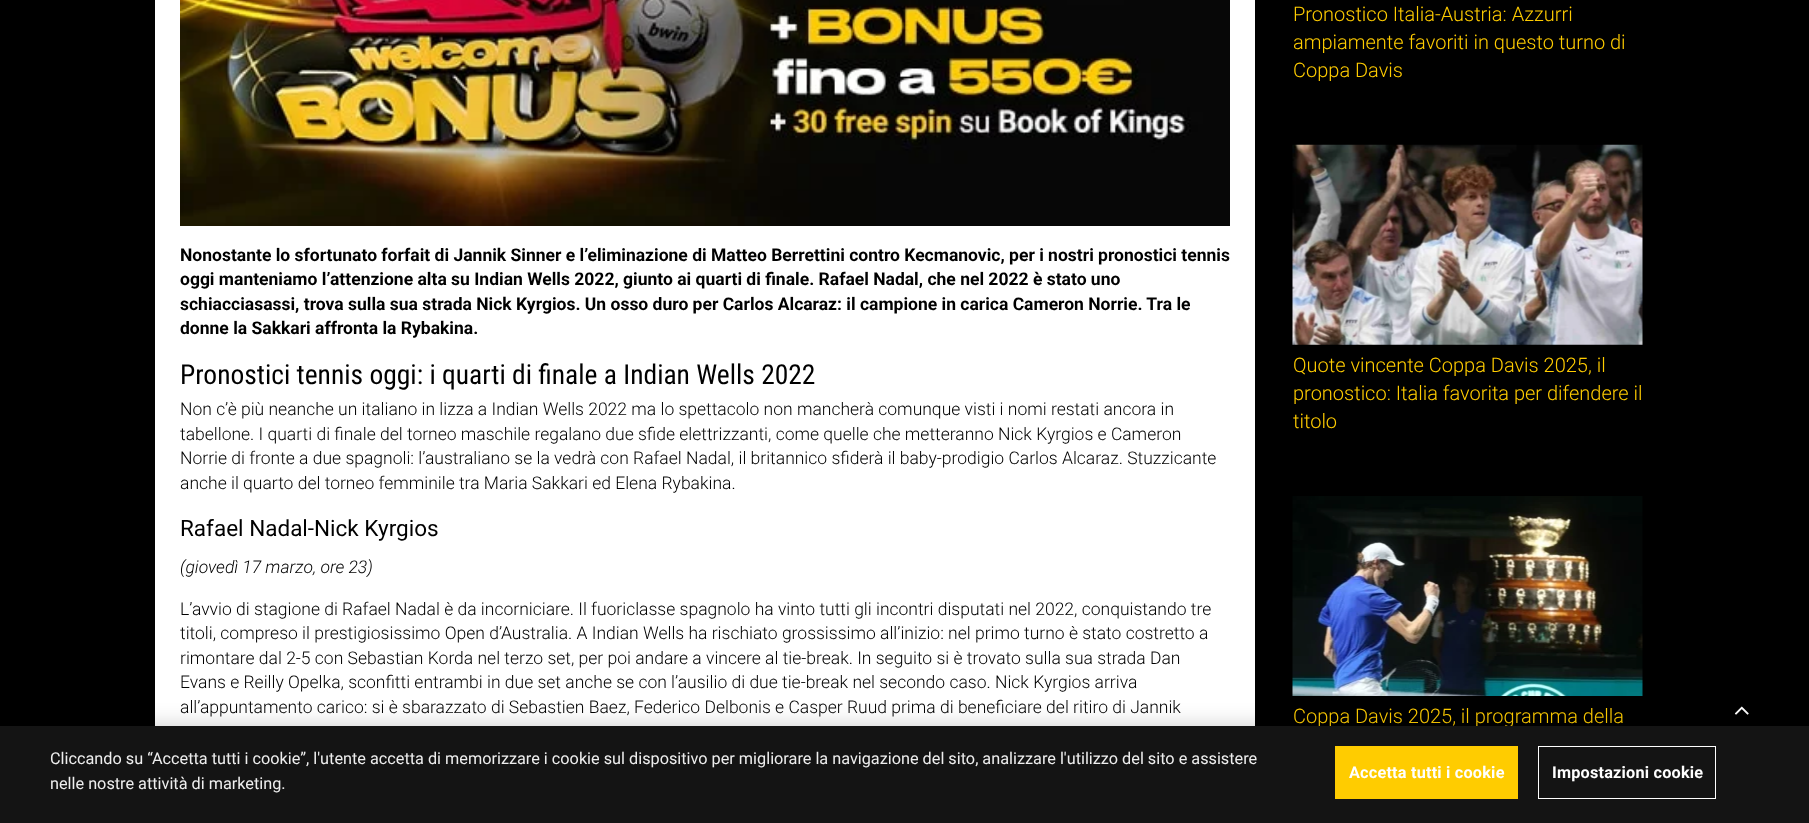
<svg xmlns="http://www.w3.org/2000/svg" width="1809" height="823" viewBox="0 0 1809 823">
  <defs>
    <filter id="blur1" x="-50%" y="-200%" width="200%" height="500%"><feGaussianBlur stdDeviation="11"/></filter>
  </defs>
  <rect width="100%" height="100%" fill="#000000"/>
  <rect x="155" y="0" width="1100" height="726" fill="#ffffff"/>
  <image x="180" y="0" width="1050" height="226" href="img1.png"/>
  <text x="180" y="261" font-family="Roboto" font-size="17.5" font-weight="bold" fill="#000000">Nonostante lo sfortunato forfait di Jannik Sinner e l’eliminazione di Matteo Berrettini contro Kecmanovic, per i nostri pronostici tennis</text>
  <text x="180" y="285" font-family="Roboto" font-size="17.5" font-weight="bold" fill="#000000">oggi manteniamo l’attenzione alta su Indian Wells 2022, giunto ai quarti di finale. Rafael Nadal, che nel 2022 è stato uno</text>
  <text x="180" y="310" font-family="Roboto" font-size="17.5" font-weight="bold" fill="#000000">schiacciasassi, trova sulla sua strada Nick Kyrgios. Un osso duro per Carlos Alcaraz: il campione in carica Cameron Norrie. Tra le</text>
  <text x="180" y="334" font-family="Roboto" font-size="17.5" font-weight="bold" fill="#000000">donne la Sakkari affronta la Rybakina.</text>
  <text x="180" y="384" font-family="Roboto Condensed" font-size="27.5" fill="#000000">Pronostici tennis oggi: i quarti di finale a Indian Wells 2022</text>
  <text x="180" y="415" font-family="Roboto" font-size="17.5" font-weight="300" fill="#000000">Non c’è più neanche un italiano in lizza a Indian Wells 2022 ma lo spettacolo non mancherà comunque visti i nomi restati ancora in</text>
  <text x="180" y="440" font-family="Roboto" font-size="17.5" font-weight="300" fill="#000000">tabellone. I quarti di finale del torneo maschile regalano due sfide elettrizzanti, come quelle che metteranno Nick Kyrgios e Cameron</text>
  <text x="180" y="464" font-family="Roboto" font-size="17.5" font-weight="300" fill="#000000">Norrie di fronte a due spagnoli: l’australiano se la vedrà con Rafael Nadal, il britannico sfiderà il baby-prodigio Carlos Alcaraz. Stuzzicante</text>
  <text x="180" y="489" font-family="Roboto" font-size="17.5" font-weight="300" fill="#000000">anche il quarto del torneo femminile tra Maria Sakkari ed Elena Rybakina.</text>
  <text x="180" y="536" font-family="Roboto" font-size="22.5" fill="#000000">Rafael Nadal-Nick Kyrgios</text>
  <text x="180" y="573" font-family="Roboto" font-size="17.5" font-weight="300" font-style="italic" fill="#000000">(giovedì 17 marzo, ore 23)</text>
  <text x="180" y="615" font-family="Roboto" font-size="17.5" font-weight="300" fill="#000000">L’avvio di stagione di Rafael Nadal è da incorniciare. Il fuoriclasse spagnolo ha vinto tutti gli incontri disputati nel 2022, conquistando tre</text>
  <text x="180" y="639" font-family="Roboto" font-size="17.5" font-weight="300" fill="#000000">titoli, compreso il prestigiosissimo Open d’Australia. A Indian Wells ha rischiato grossissimo all’inizio: nel primo turno è stato costretto a</text>
  <text x="180" y="664" font-family="Roboto" font-size="17.5" font-weight="300" fill="#000000">rimontare dal 2-5 con Sebastian Korda nel terzo set, per poi andare a vincere al tie-break. In seguito si è trovato sulla sua strada Dan</text>
  <text x="180" y="688" font-family="Roboto" font-size="17.5" font-weight="300" fill="#000000">Evans e Reilly Opelka, sconfitti entrambi in due set anche se con l’ausilio di due tie-break nel secondo caso. Nick Kyrgios arriva</text>
  <text x="180" y="713" font-family="Roboto" font-size="17.5" font-weight="300" fill="#000000">all’appuntamento carico: si è sbarazzato di Sebastien Baez, Federico Delbonis e Casper Ruud prima di beneficiare del ritiro di Jannik</text>
  <text x="1293" y="21" font-family="Roboto" font-size="20" font-weight="300" fill="#ffcc00">Pronostico Italia-Austria: Azzurri</text>
  <text x="1293" y="49" font-family="Roboto" font-size="20" font-weight="300" fill="#ffcc00">ampiamente favoriti in questo turno di</text>
  <text x="1293" y="77" font-family="Roboto" font-size="20" font-weight="300" fill="#ffcc00">Coppa Davis</text>
  <image x="1292" y="144" width="351" height="201" href="img2.png"/>
  <text x="1293" y="372" font-family="Roboto" font-size="20" font-weight="300" fill="#ffcc00">Quote vincente Coppa Davis 2025, il</text>
  <text x="1293" y="400" font-family="Roboto" font-size="20" font-weight="300" fill="#ffcc00">pronostico: Italia favorita per difendere il</text>
  <text x="1293" y="428" font-family="Roboto" font-size="20" font-weight="300" fill="#ffcc00">titolo</text>
  <image x="1292" y="496" width="351" height="200" href="img3.png"/>
  <text x="1293" y="723" font-family="Roboto" font-size="20" font-weight="300" fill="#ffcc00">Coppa Davis 2025, il programma della</text>
  <image x="1734" y="706" width="15" height="9" href="img4.png"/>
  <rect x="0" y="726" width="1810" height="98" fill="#000000" fill-opacity="0.2" filter="url(#blur1)"/>
  <rect x="0" y="726" width="1809" height="97" fill="#141414"/>
  <text x="50" y="764" font-family="Roboto" font-size="16.25" fill="#eeeeee">Cliccando su “Accetta tutti i cookie”, l'utente accetta di memorizzare i cookie sul dispositivo per migliorare la navigazione del sito, analizzare l'utilizzo del sito e assistere</text>
  <text x="50" y="789" font-family="Roboto" font-size="16.25" fill="#eeeeee">nelle nostre attività di marketing.</text>
  <rect x="1335" y="746" width="183" height="53" fill="#ffcc00"/>
  <text x="1349" y="778" font-family="Roboto" font-size="16.25" font-weight="bold" letter-spacing="0.2" fill="#ffffff">Accetta tutti i cookie</text>
  <rect x="1538.5" y="746.5" width="177" height="52" fill="none" stroke="#ffffff"/>
  <text x="1552" y="778" font-family="Roboto" font-size="16.25" font-weight="bold" letter-spacing="0.2" fill="#ffffff">Impostazioni cookie</text>
</svg>
